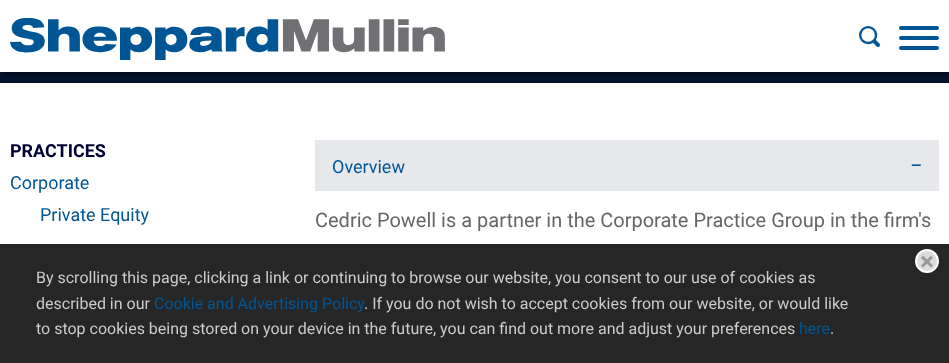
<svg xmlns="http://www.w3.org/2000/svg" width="949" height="363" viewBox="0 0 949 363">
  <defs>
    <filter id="blur1" x="-50%" y="-200%" width="200%" height="500%"><feGaussianBlur stdDeviation="2.5"/></filter>
  </defs>
  <rect width="100%" height="100%" fill="#ffffff"/>
  <rect x="0" y="72" width="949" height="11" fill="#02142e"/>
  <rect x="3" y="3" width="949" height="72" fill="#000000" fill-opacity="0.5" filter="url(#blur1)"/>
  <rect x="0" y="0" width="949" height="72" fill="#ffffff"/>
  <image x="10" y="18" width="435" height="42" href="img1.png"/>
  <image x="859" y="26" width="21" height="21" href="img2.png"/>
  <rect x="899" y="26" width="40" height="4" rx="2" fill="#005695"/>
  <rect x="899" y="36" width="40" height="4" rx="2" fill="#005695"/>
  <rect x="899" y="46" width="40" height="4" rx="2" fill="#005695"/>
  <text x="10" y="157" font-family="Roboto" font-size="18" font-weight="bold" fill="#000033">PRACTICES</text>
  <text x="10" y="189" font-family="Roboto" font-size="18" fill="#005696">Corporate</text>
  <text x="40" y="221" font-family="Roboto" font-size="18" fill="#005696">Private Equity</text>
  <rect x="315" y="140" width="624" height="51" fill="#e6e8eb"/>
  <text x="332" y="173" font-family="Roboto" font-size="18" fill="#005696">Overview</text>
  <text x="910" y="173" font-family="Roboto" font-size="22" fill="#005696">−</text>
  <text x="315" y="227" font-family="Roboto" font-size="20" fill="#666666">Cedric Powell is a partner in the Corporate Practice Group in the firm's</text>
  <rect x="0" y="244" width="949" height="119" fill="#000000" fill-opacity="0.85"/>
  <circle cx="927" cy="261" r="11" fill="#dddddd" stroke="#ffffff" stroke-width="2"/>
  <path d="M921 265.5L931 255.5L933 258L923 267.5Z" fill="#999999"/>
  <path d="M923 255.5L933 265.5L931 267.5L921 258Z" fill="#999999"/>
  <text x="36" y="283" font-family="Roboto" font-size="16" fill="#cccccc">By scrolling this page, clicking a link or continuing to browse our website, you consent to our use of cookies as</text>
  <text x="36" y="309" font-family="Roboto" font-size="16" fill="#cccccc">described in our</text>
  <text x="154" y="309" font-family="Roboto" font-size="16" fill="#005696">Cookie and Advertising Policy</text>
  <text x="364" y="309" font-family="Roboto" font-size="16" fill="#cccccc">. If you do not wish to accept cookies from our website, or would like</text>
  <text x="36" y="334" font-family="Roboto" font-size="16" fill="#cccccc">to stop cookies being stored on your device in the future, you can find out more and adjust your preferences</text>
  <text x="799" y="334" font-family="Roboto" font-size="16" fill="#005696">here</text>
  <text x="830" y="334" font-family="Roboto" font-size="16" fill="#cccccc">.</text>
</svg>
